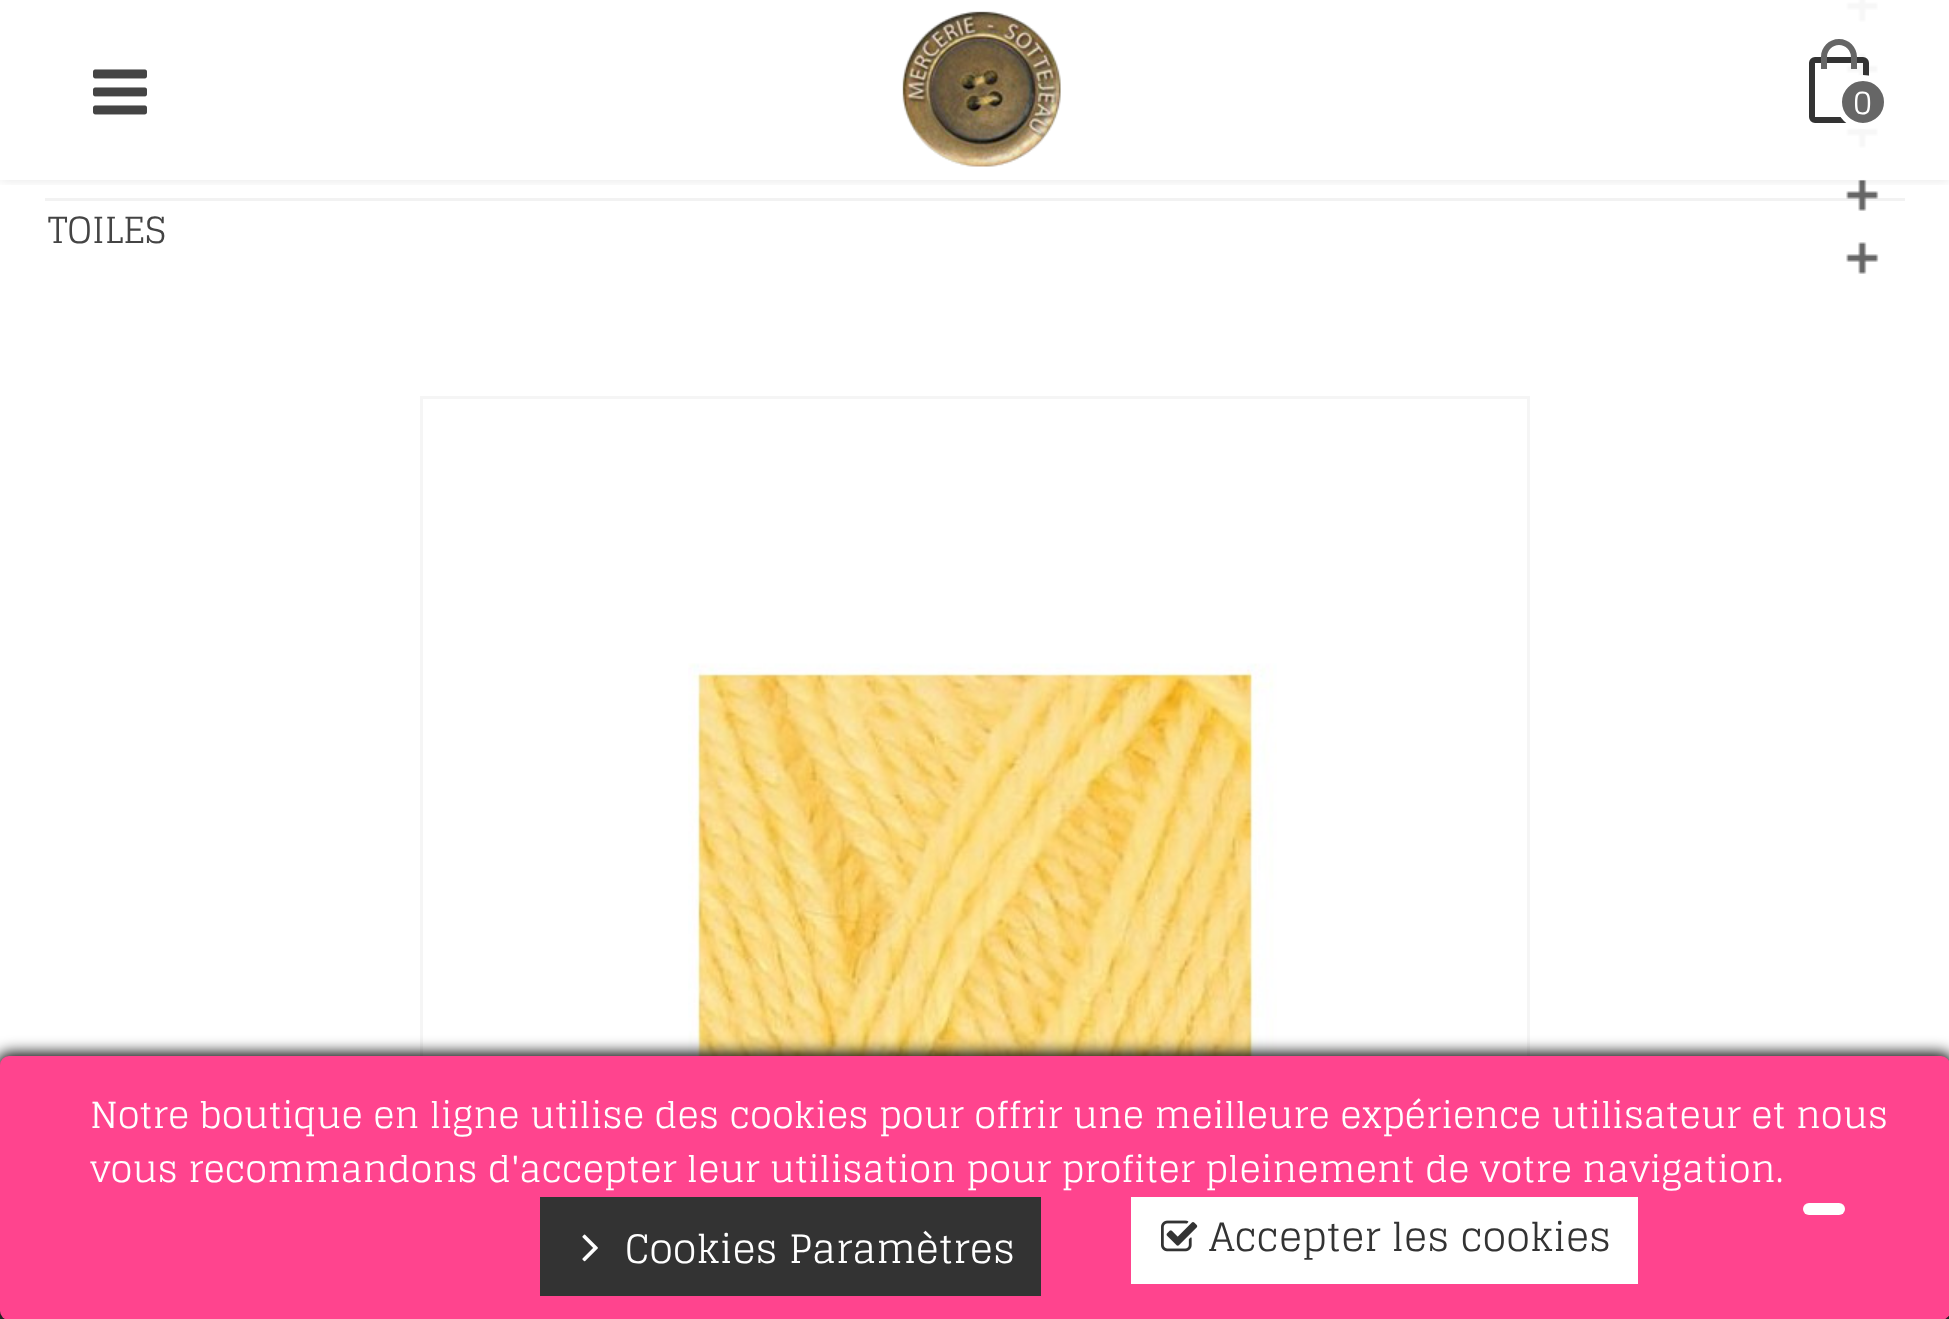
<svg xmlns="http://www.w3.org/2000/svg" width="1949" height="1319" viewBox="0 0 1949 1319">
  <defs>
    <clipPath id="clip1"><rect x="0" y="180" width="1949" height="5"/></clipPath>
    <filter id="blur1" x="-50%" y="-200%" width="200%" height="500%"><feGaussianBlur stdDeviation="6"/></filter>
    <filter id="blur2" x="-50%" y="-200%" width="200%" height="500%"><feGaussianBlur stdDeviation="7.5"/></filter>
  </defs>
  <rect width="100%" height="100%" fill="#ffffff"/>
  <rect x="45" y="9" width="1860" height="3" fill="#f2f2f2"/>
  <image x="1846" y="0" width="33" height="22" href="img3.png"/>
  <rect x="45" y="72" width="1860" height="3" fill="#f2f2f2"/>
  <image x="1846" y="53" width="33" height="23" href="img4.png"/>
  <rect x="45" y="135" width="1860" height="3" fill="#f2f2f2"/>
  <image x="1846" y="128" width="33" height="20" href="img5.png"/>
  <rect x="45" y="198" width="1860" height="3" fill="#f2f2f2"/>
  <image x="1846" y="179" width="33" height="32" href="img6.png"/>
  <g clip-path="url(#clip1)">
    <rect x="0" y="0" width="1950" height="180" fill="#000000" fill-opacity="0.1" filter="url(#blur1)"/>
  </g>
  <rect x="45" y="0" width="1860" height="180" fill="#ffffff" fill-opacity="0.95"/>
  <image x="93" y="69" width="54" height="46" href="img1.png"/>
  <image x="902" y="11" width="159" height="156" href="img2.png"/>
  <rect x="1812" y="60" width="54" height="60" rx="3" fill="none" stroke="#333333" stroke-width="6"/>
  <path d="M1839 39C1849 39 1857 47 1857 57V69H1821V57C1821 47 1829 39 1839 39ZM1839 45C1845.5 45 1851 50.5 1851 57V69H1827V57C1827 50.5 1832.5 45 1839 45Z" fill="#666666" fill-rule="evenodd"/>
  <circle cx="1863" cy="102" r="24" fill="#666666" stroke="#ffffff" stroke-width="6"/>
  <text x="1853" y="114" font-family="Glegoo" font-size="33" fill="#ffffff">0</text>
  <text x="48" y="243" font-family="Glegoo" font-size="36" fill="#444444">TOILES</text>
  <image x="1846" y="242" width="33" height="32" href="img7.png"/>
  <rect x="421.5" y="397.5" width="1107" height="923" fill="none" stroke="#f5f5f5" stroke-width="3"/>
  <image x="688" y="663" width="589" height="393" href="img8.png"/>
  <rect x="0" y="1311" width="1949" height="8" fill="#444444"/>
  <rect x="-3" y="1053" width="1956" height="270" rx="12" fill="#000000" filter="url(#blur2)"/>
  <rect x="0" y="1056" width="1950" height="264" rx="9" fill="#ff448e"/>
  <text x="90" y="1128" font-family="Glegoo" font-size="36" fill="#ffffff">Notre boutique en ligne utilise des cookies pour offrir une meilleure expérience utilisateur et nous</text>
  <text x="90" y="1182" font-family="Glegoo" font-size="36" fill="#ffffff">vous recommandons d'accepter leur utilisation pour profiter pleinement de votre navigation.</text>
  <rect x="1803" y="1203" width="42" height="12" rx="6" fill="#ffffff"/>
  <rect x="540" y="1197" width="501" height="99" fill="#333333"/>
  <image x="582" y="1234" width="16" height="28" href="img9.png"/>
  <text x="625" y="1263" font-family="Glegoo" font-size="39" fill="#ffffff">Cookies Paramètres</text>
  <rect x="1131" y="1197" width="507" height="87" fill="#ffffff"/>
  <image x="1161" y="1220" width="37" height="32" href="img10.png"/>
  <text x="1209" y="1251" font-family="Glegoo" font-size="39" fill="#333333">Accepter les cookies</text>
</svg>
